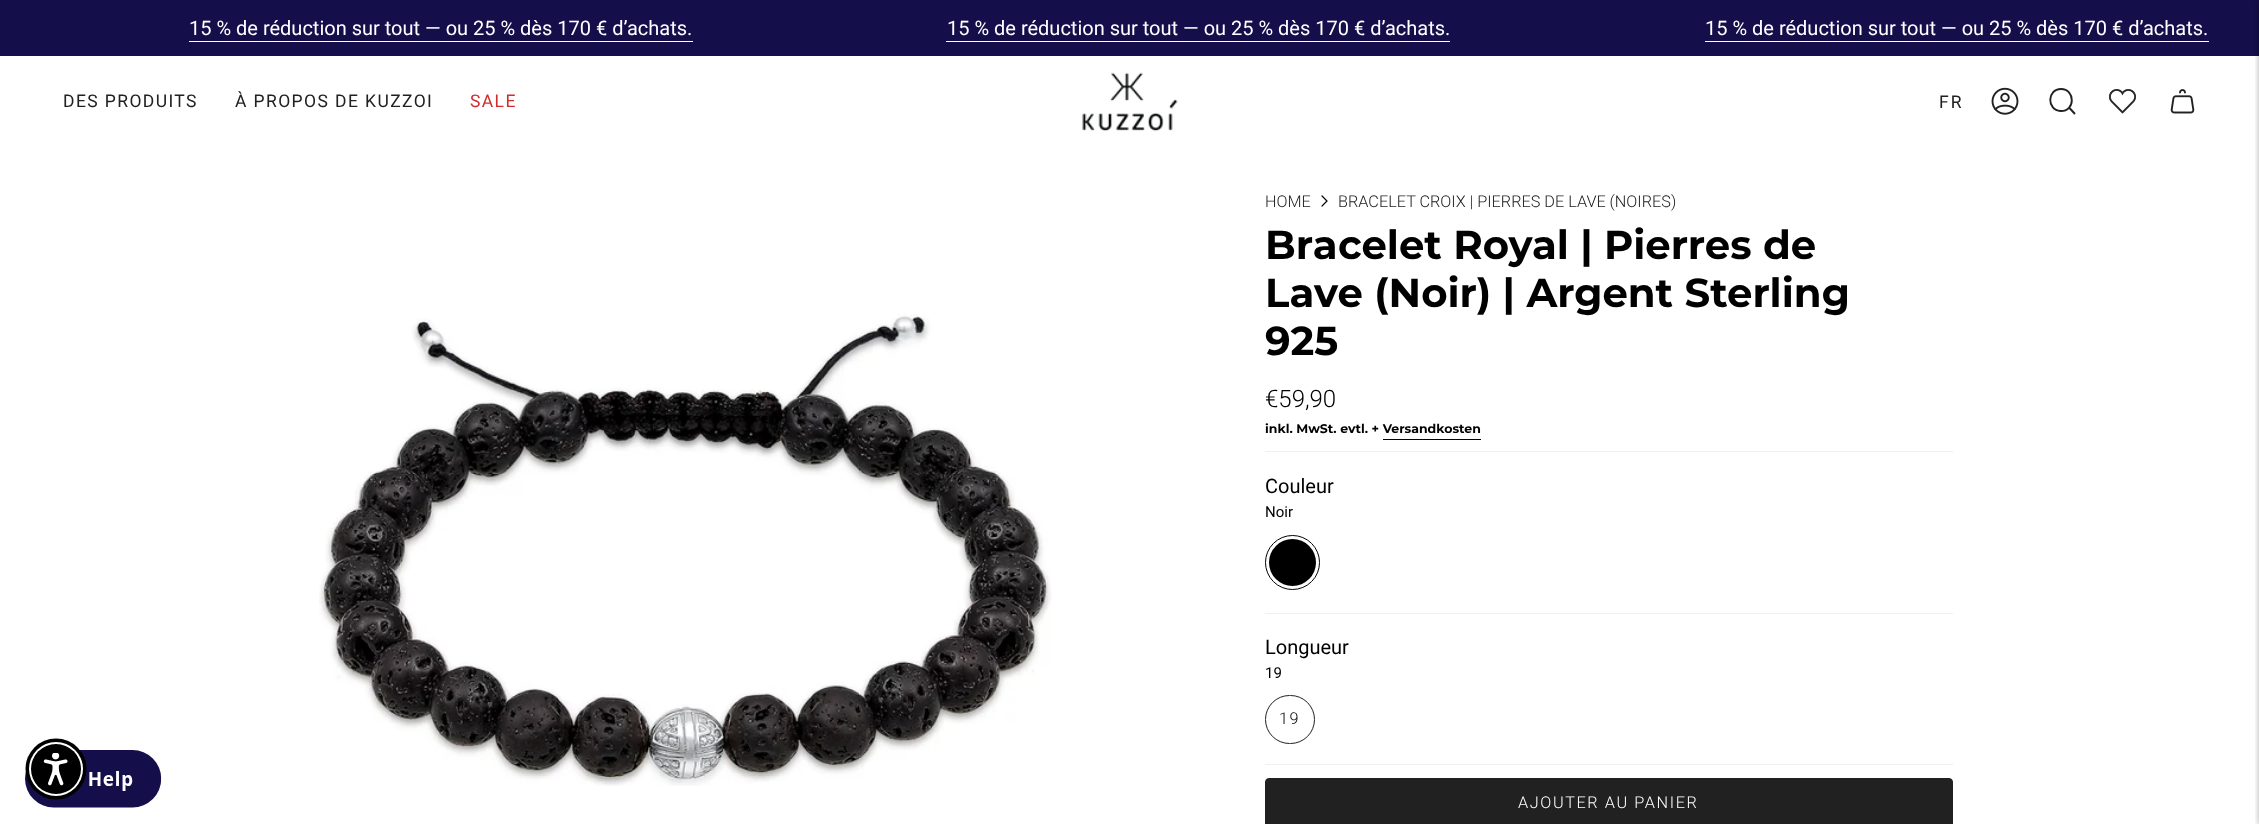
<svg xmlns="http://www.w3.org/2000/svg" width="2259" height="824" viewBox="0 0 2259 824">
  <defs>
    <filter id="blur1" x="-50%" y="-200%" width="200%" height="500%"><feGaussianBlur stdDeviation="4.5"/></filter>
  </defs>
  <rect width="100%" height="100%" fill="#ffffff"/>
  <image x="25" y="750" width="137" height="58" href="img7.png"/>
  <circle cx="56" cy="769" r="30.5" fill="#000000"/>
  <circle cx="56" cy="769" r="27" fill="#ffffff"/>
  <circle cx="56" cy="769" r="25" fill="#000000"/>
  <image x="43" y="753" width="25" height="33" href="img1.png"/>
  <rect x="0" y="0" width="2259" height="56" fill="#140e4a"/>
  <text x="189" y="35" font-family="Roboto" font-size="20" fill="#ffffff">15 % de réduction sur tout — ou 25 % dès 170 € d’achats.</text>
  <rect x="189" y="41" width="504" height="1" fill="#ffffff"/>
  <text x="947" y="35" font-family="Roboto" font-size="20" fill="#ffffff">15 % de réduction sur tout — ou 25 % dès 170 € d’achats.</text>
  <rect x="946" y="41" width="504" height="1" fill="#ffffff"/>
  <text x="1705" y="35" font-family="Roboto" font-size="20" fill="#ffffff">15 % de réduction sur tout — ou 25 % dès 170 € d’achats.</text>
  <rect x="1705" y="41" width="504" height="1" fill="#ffffff"/>
  <text x="63" y="107" font-family="Roboto" font-size="17.5" letter-spacing="1.4" fill="#212121">DES PRODUITS</text>
  <text x="235" y="107" font-family="Roboto" font-size="17.5" letter-spacing="1.4" fill="#212121">À PROPOS DE KUZZOI</text>
  <text x="470" y="107" font-family="Roboto" font-size="17.5" letter-spacing="1.4" fill="#d02e2e">SALE</text>
  <image x="1082" y="72" width="96" height="60" href="img2.png"/>
  <text x="1939" y="108" font-family="Roboto" font-size="17.5" letter-spacing="2" fill="#212121">FR</text>
  <image x="1991" y="87" width="28" height="28" href="img3.png"/>
  <path d="M2061 89C2075.5 89 2075.5 111.5 2060.5 111C2046.5 110 2047 89 2061 89ZM2069 107.5L2075 114" fill="none" stroke="#212121" stroke-width="1.9"/>
  <image x="2109" y="89" width="27" height="25" href="img4.png"/>
  <image x="2170" y="89" width="25" height="25" href="img5.png"/>
  <image x="319" y="314" width="733" height="472" href="img6.png"/>
  <text x="1265" y="207" font-family="Roboto" font-size="16.25" font-weight="300" fill="#212121">HOME</text>
  <path d="M1322 206L1327 201L1322 196" fill="none" stroke="#000000" stroke-width="1.2" stroke-linecap="round" stroke-linejoin="round"/>
  <text x="1338" y="207" font-family="Roboto" font-size="16.25" font-weight="300" fill="#212121">BRACELET CROIX | PIERRES DE LAVE (NOIRES)</text>
  <text x="1265" y="259" font-family="Montserrat" font-size="40.25" font-weight="bold" fill="#000000">Bracelet Royal | Pierres de</text>
  <text x="1265" y="307" font-family="Montserrat" font-size="40.25" font-weight="bold" fill="#000000">Lave (Noir) | Argent Sterling</text>
  <text x="1265" y="355" font-family="Montserrat" font-size="40.25" font-weight="bold" fill="#000000">925</text>
  <text x="1265" y="407" font-family="Roboto" font-size="24" font-weight="300" fill="#000000">€59,90</text>
  <text x="1265" y="433" font-family="Montserrat" font-size="12.5" font-weight="bold" fill="#000000">inkl. MwSt. evtl. + Versandkosten</text>
  <rect x="1383" y="439" width="98" height="1" fill="#000000"/>
  <rect x="1265" y="451" width="688" height="1" fill="#f0f0f0"/>
  <rect x="1265" y="764" width="688" height="1" fill="#f0f0f0"/>
  <rect x="1265" y="613" width="688" height="1" fill="#f0f0f0"/>
  <text x="1265" y="493" font-family="Roboto" font-size="20" fill="#000000">Couleur</text>
  <text x="1265" y="517" font-family="Roboto" font-size="15" fill="#000000">Noir</text>
  <circle cx="1292.5" cy="562.5" r="23.5" fill="#000000"/>
  <circle cx="1292.5" cy="562.5" r="27" fill="none" stroke="#000000"/>
  <text x="1265" y="654" font-family="Roboto" font-size="20" fill="#000000">Longueur</text>
  <text x="1265" y="678" font-family="Roboto" font-size="15" fill="#000000">19</text>
  <rect x="1265.5" y="695.5" width="49" height="48" rx="24" fill="none" stroke="#212121"/>
  <text x="1279" y="724" font-family="Roboto" font-size="16.25" font-weight="300" letter-spacing="1.6" fill="#000000">19</text>
  <rect x="1265.5" y="778.5" width="687" height="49" rx="3.5" fill="#212121" stroke="#212121"/>
  <text x="1518" y="808" font-family="Roboto" font-size="16.25" font-weight="300" letter-spacing="1.6" fill="#ffffff">AJOUTER AU PANIER</text>
  <path d="M1599 803L1600 802.5L1607 809.5L1606 810Z" fill="#212121"/>
  <rect x="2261" y="0" width="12" height="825" fill="#000000" fill-opacity="0.5" filter="url(#blur1)"/>
</svg>
